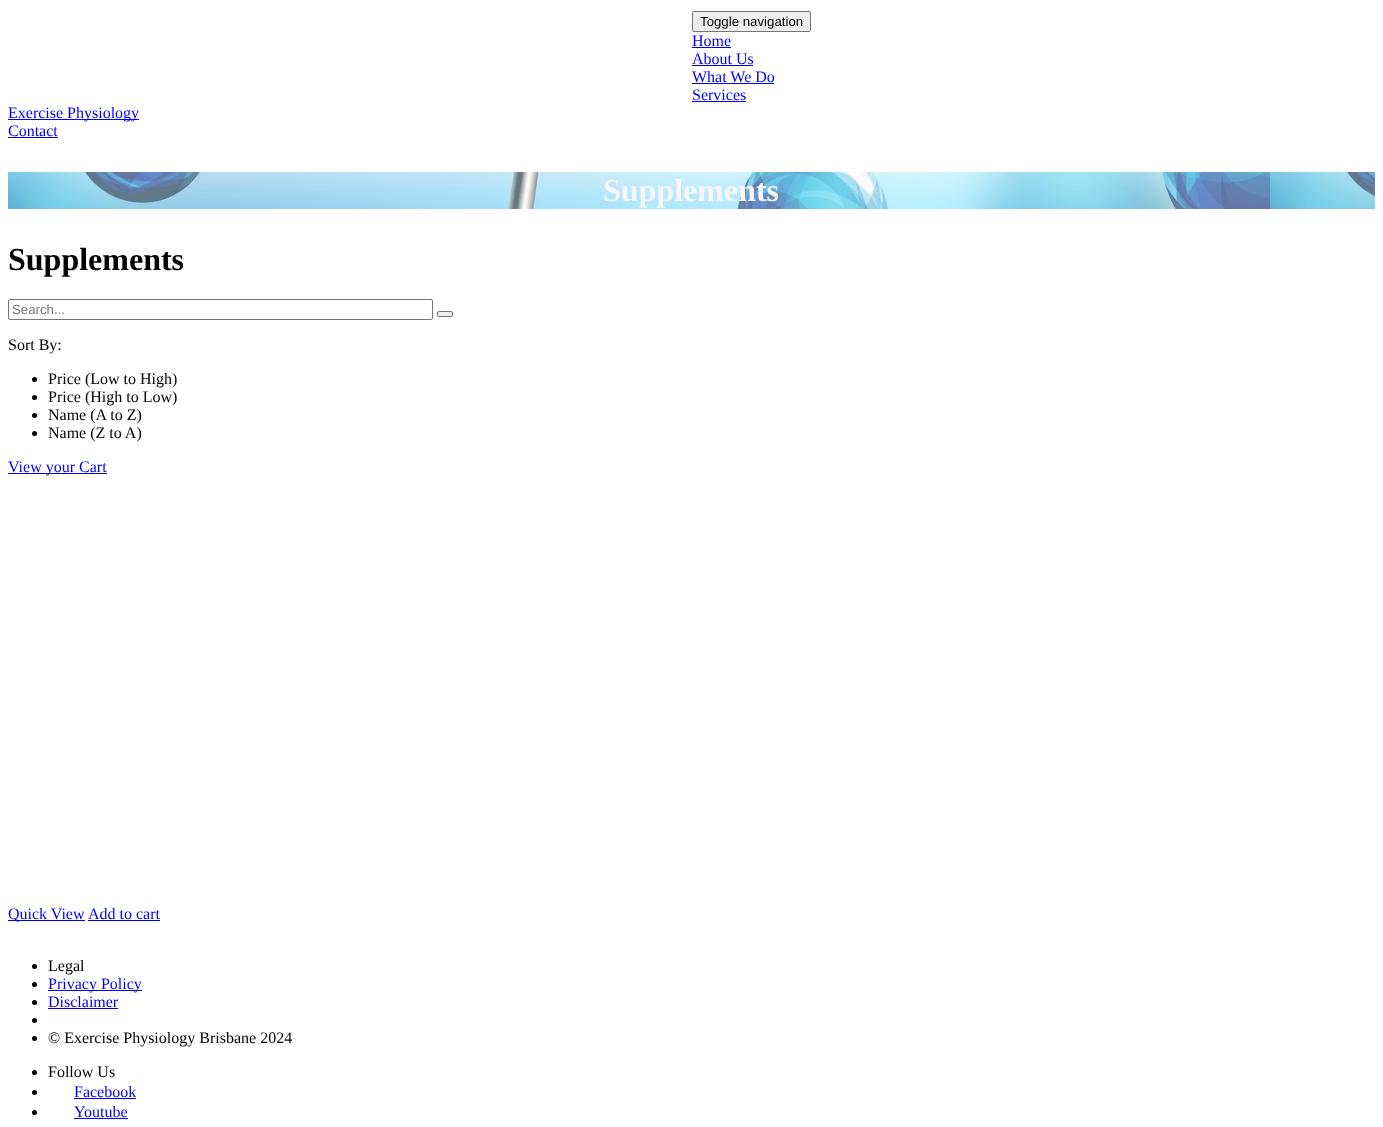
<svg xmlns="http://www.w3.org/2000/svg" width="1383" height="1127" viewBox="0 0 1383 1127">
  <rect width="100%" height="100%" fill="#ffffff"/>
  <rect x="692.5" y="11.5" width="118" height="20" rx="1.5" fill="#efefef" stroke="#767676"/>
  <text x="700" y="26" font-family="Liberation Sans" font-size="13.25" fill="#000000">Toggle navigation</text>
  <text x="692" y="46" font-family="Liberation Serif" font-size="16" fill="#0000ee">Home</text>
  <rect x="692" y="47" width="39" height="1" fill="#0000ee"/>
  <text x="692" y="64" font-family="Liberation Serif" font-size="16" fill="#0000ee">About Us</text>
  <rect x="692" y="65" width="61" height="1" fill="#0000ee"/>
  <text x="692" y="82" font-family="Liberation Serif" font-size="16" fill="#0000ee">What We Do</text>
  <rect x="692" y="83" width="82" height="1" fill="#0000ee"/>
  <text x="692" y="100" font-family="Liberation Serif" font-size="16" fill="#0000ee">Services</text>
  <rect x="692" y="101" width="54" height="1" fill="#0000ee"/>
  <rect x="8" y="119" width="131" height="1" fill="#0000ee"/>
  <text x="8" y="118" font-family="Liberation Serif" font-size="16" fill="#0000ee">Exercise Physiology</text>
  <text x="8" y="136" font-family="Liberation Serif" font-size="16" fill="#0000ee">Contact</text>
  <rect x="8" y="137" width="50" height="1" fill="#0000ee"/>
  <image x="8" y="172" width="1367" height="37" href="img1.png"/>
  <text x="603" y="201" font-family="Liberation Serif" font-size="32" font-weight="bold" fill="#f7f5f5">Supplements</text>
  <text x="8" y="270" font-family="Liberation Serif" font-size="32" font-weight="bold" fill="#000000">Supplements</text>
  <rect x="8.5" y="299.5" width="424" height="20" rx="1.5" fill="none" stroke="#767676"/>
  <text x="12" y="314" font-family="Liberation Sans" font-size="13.25" fill="#757575">Search...</text>
  <rect x="437.5" y="311.5" width="15" height="5" rx="1.5" fill="#efefef" stroke="#767676"/>
  <text x="8" y="350" font-family="Liberation Serif" font-size="16" fill="#000000">Sort By:</text>
  <circle cx="34.5" cy="379.5" r="2.5" fill="#000000"/>
  <text x="48" y="384" font-family="Liberation Serif" font-size="16" fill="#000000">Price (Low to High)</text>
  <circle cx="34.5" cy="397.5" r="2.5" fill="#000000"/>
  <text x="48" y="402" font-family="Liberation Serif" font-size="16" fill="#000000">Price (High to Low)</text>
  <circle cx="34.5" cy="415.5" r="2.5" fill="#000000"/>
  <text x="48" y="420" font-family="Liberation Serif" font-size="16" fill="#000000">Name (A to Z)</text>
  <circle cx="34.5" cy="433.5" r="2.5" fill="#000000"/>
  <text x="48" y="438" font-family="Liberation Serif" font-size="16" fill="#000000">Name (Z to A)</text>
  <rect x="8" y="473" width="99" height="1" fill="#0000ee"/>
  <text x="8" y="472" font-family="Liberation Serif" font-size="16" fill="#0000ee">View your Cart</text>
  <rect x="8" y="920" width="77" height="1" fill="#0000ee"/>
  <text x="8" y="919" font-family="Liberation Serif" font-size="16" fill="#0000ee">Quick View</text>
  <text x="88" y="919" font-family="Liberation Serif" font-size="16" fill="#0000ee">Add to cart</text>
  <rect x="88" y="920" width="72" height="1" fill="#0000ee"/>
  <circle cx="34.5" cy="966.5" r="2.5" fill="#000000"/>
  <text x="48" y="971" font-family="Liberation Serif" font-size="16" fill="#000000">Legal</text>
  <circle cx="34.5" cy="984.5" r="2.5" fill="#000000"/>
  <rect x="48" y="990" width="94" height="1" fill="#0000ee"/>
  <text x="48" y="989" font-family="Liberation Serif" font-size="16" fill="#0000ee">Privacy Policy</text>
  <circle cx="34.5" cy="1002.5" r="2.5" fill="#000000"/>
  <text x="48" y="1007" font-family="Liberation Serif" font-size="16" fill="#0000ee">Disclaimer</text>
  <rect x="48" y="1008" width="70" height="1" fill="#0000ee"/>
  <circle cx="34.5" cy="1020.5" r="2.5" fill="#000000"/>
  <circle cx="34.5" cy="1038.5" r="2.5" fill="#000000"/>
  <text x="48" y="1043" font-family="Liberation Serif" font-size="16" fill="#000000">© Exercise Physiology Brisbane 2024</text>
  <circle cx="34.5" cy="1072.5" r="2.5" fill="#000000"/>
  <text x="48" y="1077" font-family="Liberation Serif" font-size="16" fill="#000000">Follow Us</text>
  <circle cx="34.5" cy="1092.5" r="2.5" fill="#000000"/>
  <text x="74" y="1097" font-family="Liberation Serif" font-size="16" fill="#0000ee">Facebook</text>
  <rect x="74" y="1098" width="62" height="1" fill="#0000ee"/>
  <circle cx="34.5" cy="1112.5" r="2.5" fill="#000000"/>
  <text x="74" y="1117" font-family="Liberation Serif" font-size="16" fill="#0000ee">Youtube</text>
  <rect x="74" y="1118" width="54" height="1" fill="#0000ee"/>
</svg>
